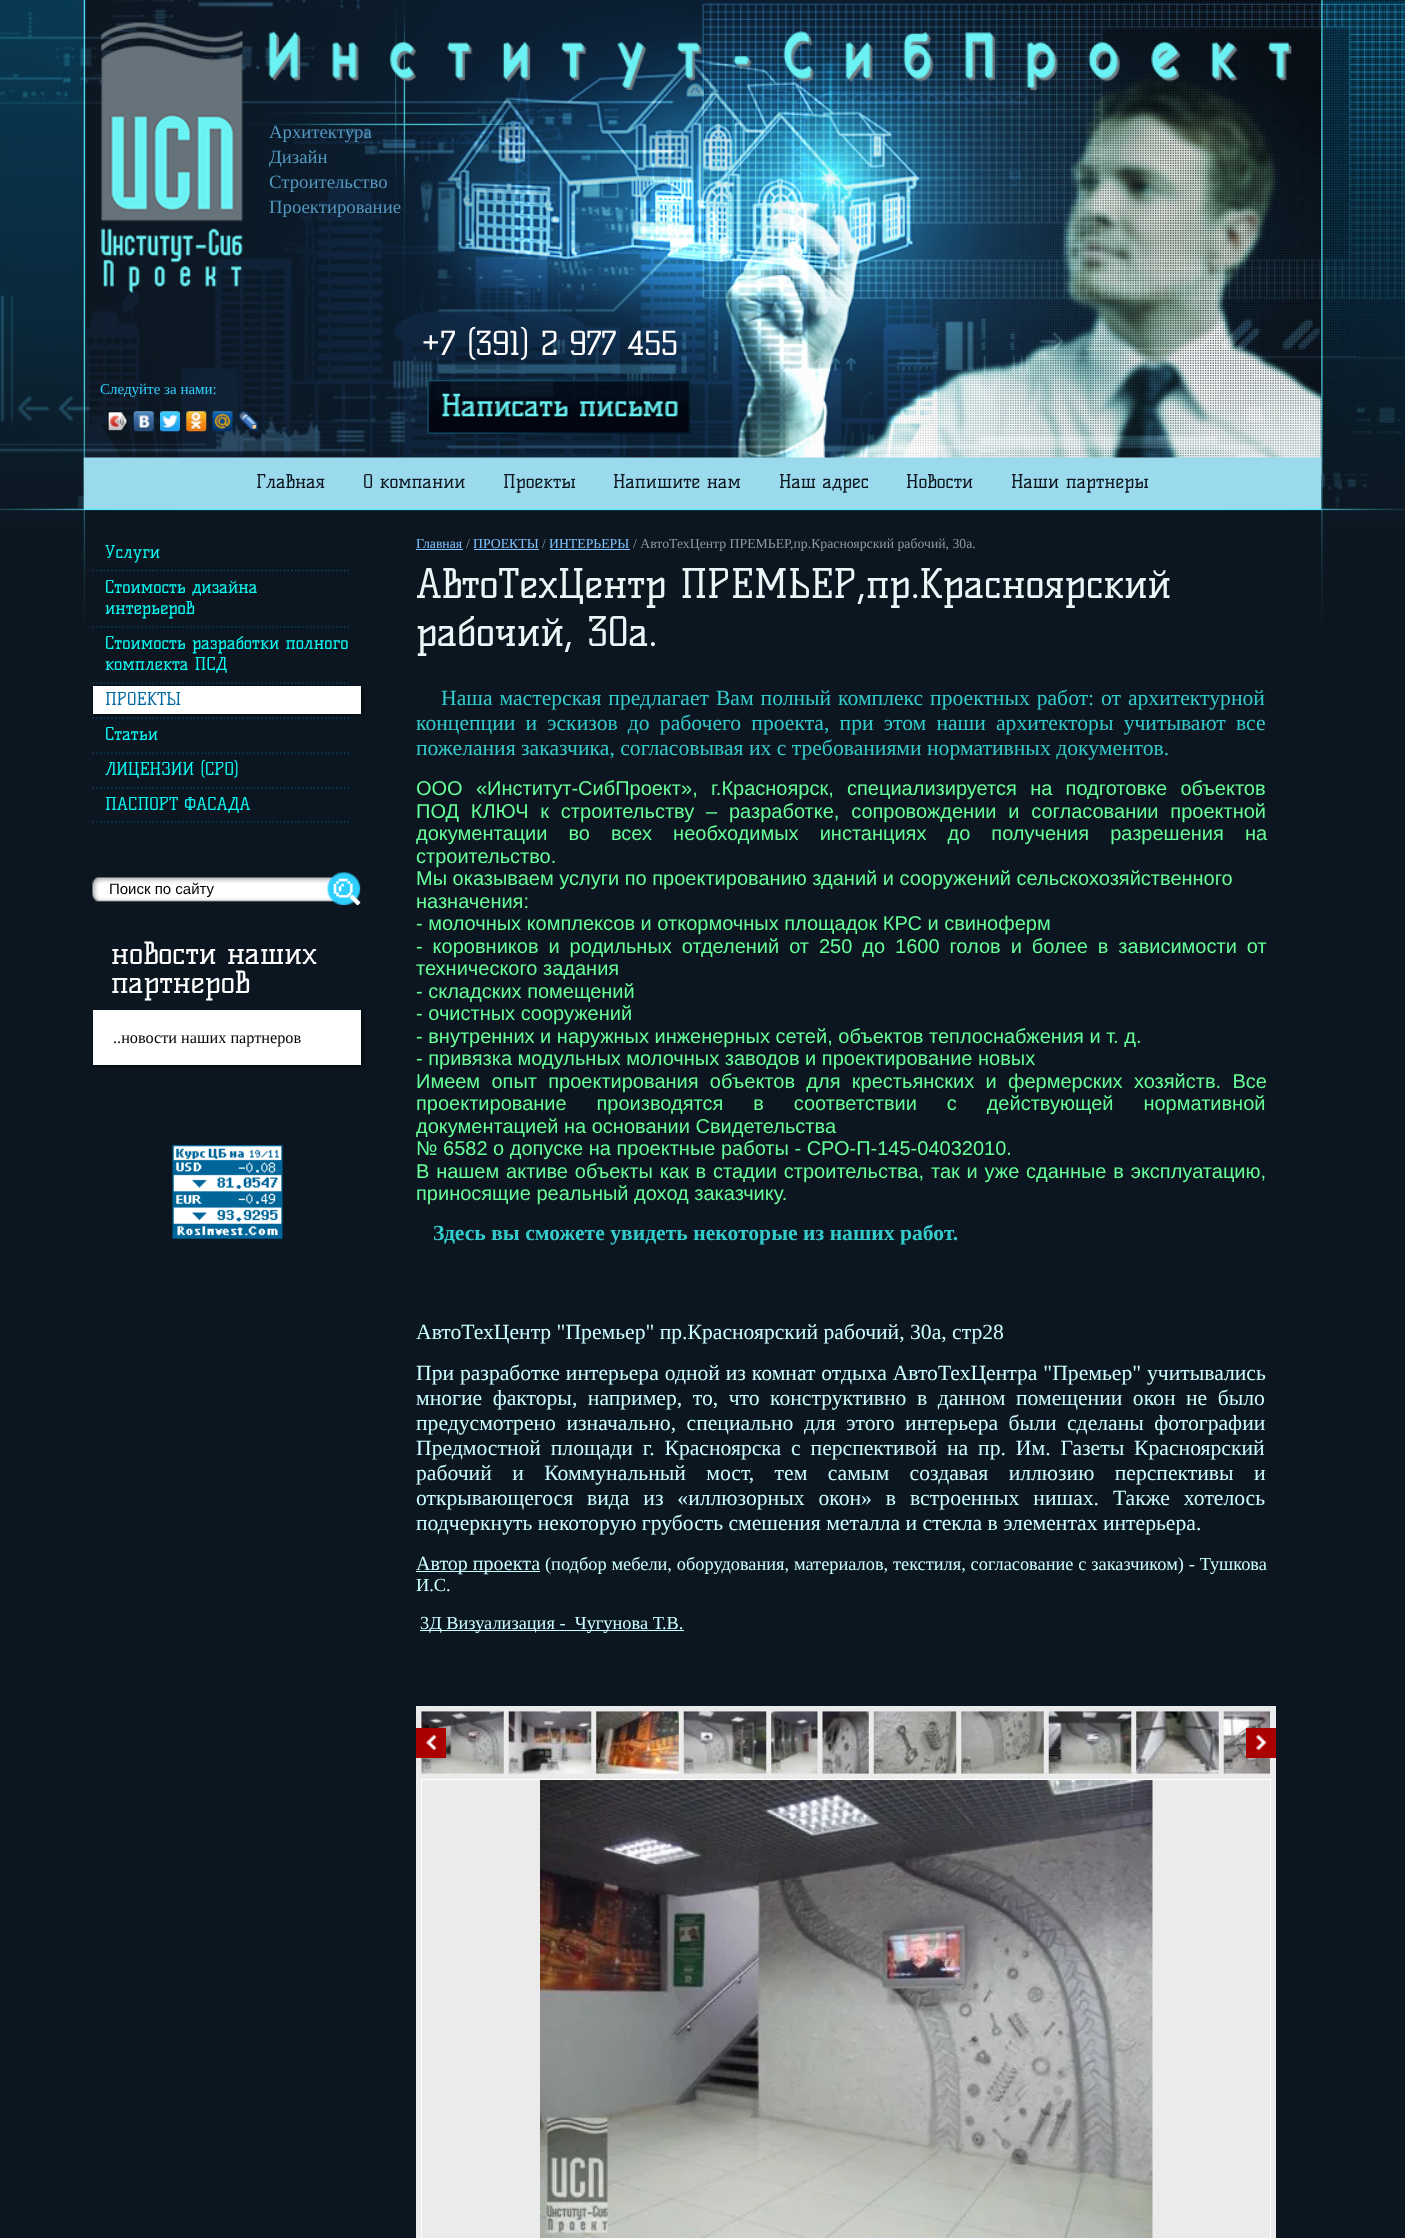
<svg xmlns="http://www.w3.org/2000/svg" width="1405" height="2238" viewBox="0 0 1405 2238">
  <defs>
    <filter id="blur1" x="-50%" y="-200%" width="200%" height="500%"><feGaussianBlur stdDeviation="1"/></filter>
  </defs>
  <rect width="100%" height="100%" fill="#0c1620"/>
  <image x="0" y="0" width="1405" height="630" href="img1.png"/>
  <image x="101" y="22" width="142" height="271" href="img2.png"/>
  <image x="268" y="31" width="1024" height="59" href="img3.png"/>
  <text x="269" y="138" font-family="Liberation Serif" font-size="18.75" fill="#5497bf">Архитектура</text>
  <text x="269" y="163" font-family="Liberation Serif" font-size="18.75" fill="#5497bf">Дизайн</text>
  <text x="269" y="188" font-family="Liberation Serif" font-size="18.75" fill="#5497bf">Строительство</text>
  <text x="269" y="213" font-family="Liberation Serif" font-size="18.75" fill="#5497bf">Проектирование</text>
  <text x="421" y="355" font-family="Kelly Slab" font-size="32.5" fill="#ffffff">+7 (391) 2 977 455</text>
  <text x="100" y="394" font-family="Liberation Serif" font-size="15" fill="#2ecfff">Следуйте за нами:</text>
  <image x="107" y="411" width="21" height="20" href="img4.png"/>
  <image x="107" y="411" width="21" height="20" href="img5.png"/>
  <image x="133" y="411" width="21" height="21" href="img6.png"/>
  <image x="160" y="411" width="20" height="21" href="img7.png"/>
  <image x="186" y="411" width="21" height="21" href="img8.png"/>
  <image x="212" y="411" width="21" height="21" href="img9.png"/>
  <image x="238" y="411" width="21" height="21" href="img10.png"/>
  <image x="427" y="380" width="263" height="54" href="img11.png"/>
  <image x="83" y="457" width="1239" height="53" href="img12.png"/>
  <text x="256" y="488" font-family="Kelly Slab" font-size="18.75" fill="#0c1620">Главная</text>
  <text x="363" y="488" font-family="Kelly Slab" font-size="18.75" fill="#0c1620">О компании</text>
  <text x="503" y="488" font-family="Kelly Slab" font-size="18.75" fill="#0c1620">Проекты</text>
  <text x="613" y="488" font-family="Kelly Slab" font-size="18.75" fill="#0c1620">Напишите нам</text>
  <text x="779" y="488" font-family="Kelly Slab" font-size="18.75" fill="#0c1620">Наш адрес</text>
  <text x="906" y="488" font-family="Kelly Slab" font-size="18.75" fill="#0c1620">Новости</text>
  <text x="1011" y="488" font-family="Kelly Slab" font-size="18.75" fill="#0c1620">Наши партнеры</text>
  <image x="92" y="821" width="257" height="2" href="img13.png"/>
  <text x="105" y="558" font-family="Kelly Slab" font-size="17.5" fill="#0cf8f2">Услуги</text>
  <image x="92" y="570" width="257" height="2" href="img14.png"/>
  <text x="105" y="593" font-family="Kelly Slab" font-size="17.5" fill="#0cf8f2">Стоимость дизайна</text>
  <text x="105" y="614" font-family="Kelly Slab" font-size="17.5" fill="#0cf8f2">интерьеров</text>
  <image x="92" y="626" width="257" height="2" href="img13.png"/>
  <text x="105" y="649" font-family="Kelly Slab" font-size="17.5" fill="#0cf8f2">Стоимость разработки полного</text>
  <text x="105" y="670" font-family="Kelly Slab" font-size="17.5" fill="#0cf8f2">комплекта ПСД</text>
  <image x="92" y="682" width="257" height="2" href="img15.png"/>
  <image x="92" y="717" width="257" height="2" href="img15.png"/>
  <rect x="94" y="688" width="269" height="27" fill="#05080c" filter="url(#blur1)"/>
  <rect x="93" y="686" width="268" height="28" fill="#ffffff"/>
  <text x="105" y="705" font-family="Kelly Slab" font-size="17.5" fill="#0069a0">ПРОЕКТЫ</text>
  <text x="105" y="740" font-family="Kelly Slab" font-size="17.5" fill="#0cf8f2">Статьи</text>
  <image x="92" y="752" width="257" height="2" href="img15.png"/>
  <text x="105" y="775" font-family="Kelly Slab" font-size="17.5" fill="#0cf8f2">ЛИЦЕНЗИИ (СРО)</text>
  <image x="92" y="787" width="257" height="2" href="img15.png"/>
  <text x="105" y="810" font-family="Kelly Slab" font-size="17.5" fill="#0cf8f2">ПАСПОРТ ФАСАДА</text>
  <image x="92" y="872" width="269" height="33" href="img16.png"/>
  <text x="109" y="894" font-family="Liberation Sans" font-size="15" fill="#000000">Поиск по сайту</text>
  <text x="111" y="964" font-family="Kelly Slab" font-size="30" fill="#ffffff">новости наших</text>
  <text x="111" y="993" font-family="Kelly Slab" font-size="30" fill="#ffffff">партнеров</text>
  <rect x="94" y="1011" width="269" height="55" fill="#05080c" filter="url(#blur1)"/>
  <rect x="93" y="1010" width="268" height="55" fill="#ffffff"/>
  <text x="113" y="1043" font-family="Liberation Serif" font-size="16.25" fill="#000000">..новости наших партнеров</text>
  <image x="172" y="1145" width="111" height="94" href="img17.png"/>
  <text x="416" y="548" font-family="Liberation Serif" font-size="13.75" fill="#80c3ff">Главная</text>
  <rect x="416" y="549" width="47" height="1" fill="#80c3ff"/>
  <text x="466" y="548" font-family="Liberation Serif" font-size="13.75" fill="#8b99a5">/</text>
  <text x="473" y="548" font-family="Liberation Serif" font-size="13.75" fill="#80c3ff">ПРОЕКТЫ</text>
  <rect x="474" y="549" width="65" height="1" fill="#80c3ff"/>
  <text x="542" y="548" font-family="Liberation Serif" font-size="13.75" fill="#8b99a5">/</text>
  <text x="549" y="548" font-family="Liberation Serif" font-size="13.75" fill="#80c3ff">ИНТЕРЬЕРЫ</text>
  <rect x="550" y="549" width="80" height="1" fill="#80c3ff"/>
  <text x="633" y="548" font-family="Liberation Serif" font-size="13.75" fill="#8b99a5">/ АвтоТехЦентр ПРЕМЬЕР,пр.Красноярский рабочий, 30а.</text>
  <text x="416" y="598" font-family="Kelly Slab" font-size="40" fill="#eaf7f8">АвтоТехЦентр ПРЕМЬЕР,пр.Красноярский</text>
  <text x="416" y="646" font-family="Kelly Slab" font-size="40" fill="#eaf7f8">рабочий, 30а.</text>
  <text x="441" y="705" word-spacing="1.5" font-family="Liberation Serif" font-size="21.65" fill="#33cccc">Наша мастерская предлагает Вам полный комплекс проектных работ: от архитектурной</text>
  <text x="416" y="730" word-spacing="4.75" font-family="Liberation Serif" font-size="21.65" fill="#33cccc">концепции и эскизов до рабочего проекта, при этом наши архитекторы учитывают все</text>
  <text x="416" y="755" font-family="Liberation Serif" font-size="21.65" fill="#33cccc">пожелания заказчика, согласовывая их с требованиями нормативных документов.</text>
  <text x="416" y="795" word-spacing="7.75" font-family="Liberation Sans" font-size="20" fill="#66ff99">ООО «Институт-СибПроект», г.Красноярск, специализируется на подготовке объектов</text>
  <text x="416" y="818" word-spacing="6.25" font-family="Liberation Sans" font-size="20" fill="#66ff99">ПОД КЛЮЧ к строительству – разработке, сопровождении и согласовании проектной</text>
  <text x="416" y="840" word-spacing="15.5" font-family="Liberation Sans" font-size="20" fill="#66ff99">документации во всех необходимых инстанциях до получения разрешения на</text>
  <text x="416" y="863" font-family="Liberation Sans" font-size="20" fill="#66ff99">строительство.</text>
  <text x="416" y="885" font-family="Liberation Sans" font-size="20" fill="#66ff99">Мы оказываем услуги по проектированию зданий и сооружений сельскохозяйственного</text>
  <text x="416" y="908" font-family="Liberation Sans" font-size="20" fill="#66ff99">назначения:</text>
  <text x="416" y="930" font-family="Liberation Sans" font-size="20" fill="#66ff99">- молочных комплексов и откормочных площадок КРС и свиноферм</text>
  <text x="416" y="953" word-spacing="4.4" font-family="Liberation Sans" font-size="20" fill="#66ff99">- коровников и родильных отделений от 250 до 1600 голов и более в зависимости от</text>
  <text x="416" y="975" font-family="Liberation Sans" font-size="20" fill="#66ff99">технического задания</text>
  <text x="416" y="998" font-family="Liberation Sans" font-size="20" fill="#66ff99">- складских помещений</text>
  <text x="416" y="1020" font-family="Liberation Sans" font-size="20" fill="#66ff99">- очистных сооружений</text>
  <text x="416" y="1043" font-family="Liberation Sans" font-size="20" fill="#66ff99">- внутренних и наружных инженерных сетей, объектов теплоснабжения и т. д.</text>
  <text x="416" y="1065" font-family="Liberation Sans" font-size="20" fill="#66ff99">- привязка модульных молочных заводов и проектирование новых</text>
  <text x="416" y="1088" word-spacing="5.75" font-family="Liberation Sans" font-size="20" fill="#66ff99">Имеем опыт проектирования объектов для крестьянских и фермерских хозяйств. Все</text>
  <text x="416" y="1110" word-spacing="9.4" font-family="Liberation Sans" font-size="20" fill="#66ff99" xml:space="preserve">проектирование  производятся  в  соответствии  с  действующей  нормативной</text>
  <text x="416" y="1133" font-family="Liberation Sans" font-size="20" fill="#66ff99">документацией на основании Свидетельства</text>
  <text x="416" y="1155" font-family="Liberation Sans" font-size="20" fill="#66ff99">№ 6582 о допуске на проектные работы - СРО-П-145-04032010.</text>
  <text x="416" y="1178" word-spacing="1.25" font-family="Liberation Sans" font-size="20" fill="#66ff99">В нашем активе объекты как в стадии строительства, так и уже сданные в эксплуатацию,</text>
  <text x="416" y="1200" font-family="Liberation Sans" font-size="20" fill="#66ff99">приносящие реальный доход заказчику.</text>
  <text x="433" y="1240" font-family="Liberation Serif" font-size="21.65" font-weight="bold" fill="#33cccc">Здесь вы сможете увидеть некоторые из наших работ.</text>
  <text x="416" y="1339" font-family="Liberation Serif" font-size="21.65" fill="#ccffff">АвтоТехЦентр "Премьер" пр.Красноярский рабочий, 30а, стр28</text>
  <text x="416" y="1380" word-spacing="0.5" font-family="Liberation Serif" font-size="21.65" fill="#ccffff">При разработке интерьера одной из комнат отдыха АвтоТехЦентра "Премьер" учитывались</text>
  <text x="416" y="1405" word-spacing="5.1" font-family="Liberation Serif" font-size="21.65" fill="#ccffff">многие факторы, например, то, что конструктивно в данном помещении окон не было</text>
  <text x="416" y="1430" word-spacing="5.1" font-family="Liberation Serif" font-size="21.65" fill="#ccffff">предусмотрено изначально, специально для этого интерьера были сделаны фотографии</text>
  <text x="416" y="1455" word-spacing="4.5" font-family="Liberation Serif" font-size="21.65" fill="#ccffff">Предмостной площади г. Красноярска с перспективой на пр. Им. Газеты Красноярский</text>
  <text x="416" y="1480" word-spacing="15" font-family="Liberation Serif" font-size="21.65" fill="#ccffff">рабочий и Коммунальный мост, тем самым создавая иллюзию перспективы и</text>
  <text x="416" y="1505" word-spacing="8.5" font-family="Liberation Serif" font-size="21.65" fill="#ccffff">открывающегося вида из «иллюзорных окон» в встроенных нишах. Также хотелось</text>
  <text x="416" y="1530" font-family="Liberation Serif" font-size="21.65" fill="#ccffff">подчеркнуть некоторую грубость смешения металла и стекла в элементах интерьера.</text>
  <rect x="416" y="1571" width="124" height="1" fill="#ccffff"/>
  <text x="416" y="1570" font-family="Liberation Serif" font-size="20" fill="#ccffff">Автор проекта</text>
  <text x="545" y="1570" word-spacing="0.25" font-family="Liberation Serif" font-size="18.35" fill="#ccffff">(подбор мебели, оборудования, материалов, текстиля, согласование с заказчиком) - Тушкова</text>
  <text x="416" y="1591" font-family="Liberation Serif" font-size="18.35" fill="#ccffff">И.С.</text>
  <rect x="420" y="1630" width="264" height="1" fill="#ccffff"/>
  <text x="420" y="1629" font-family="Liberation Serif" font-size="18.35" fill="#ccffff" xml:space="preserve">3Д Визуализация -  Чугунова Т.В.</text>
  <rect x="416" y="1706" width="860" height="532" fill="#ebebeb"/>
  <image x="421" y="1711" width="83" height="63" href="img18.png"/>
  <image x="508" y="1711" width="84" height="63" href="img19.png"/>
  <image x="596" y="1711" width="83" height="63" href="img20.png"/>
  <image x="683" y="1711" width="84" height="63" href="img21.png"/>
  <image x="771" y="1711" width="47" height="63" href="img22.png"/>
  <image x="822" y="1711" width="47" height="63" href="img23.png"/>
  <image x="873" y="1711" width="84" height="63" href="img24.png"/>
  <image x="961" y="1711" width="83" height="63" href="img25.png"/>
  <image x="1048" y="1711" width="84" height="63" href="img26.png"/>
  <image x="1136" y="1711" width="83" height="63" href="img27.png"/>
  <image x="1223" y="1711" width="47" height="63" href="img28.png"/>
  <rect x="416" y="1728" width="30" height="30" fill="#aa0000"/>
  <image x="426" y="1735" width="11" height="15" href="img29.png"/>
  <rect x="1246" y="1728" width="30" height="30" fill="#aa0000"/>
  <image x="1256" y="1735" width="11" height="15" href="img30.png"/>
  <rect x="421.5" y="1779.5" width="849" height="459" fill="none" stroke="#ffffff"/>
  <image x="540" y="1780" width="613" height="458" href="img31.png"/>
</svg>
